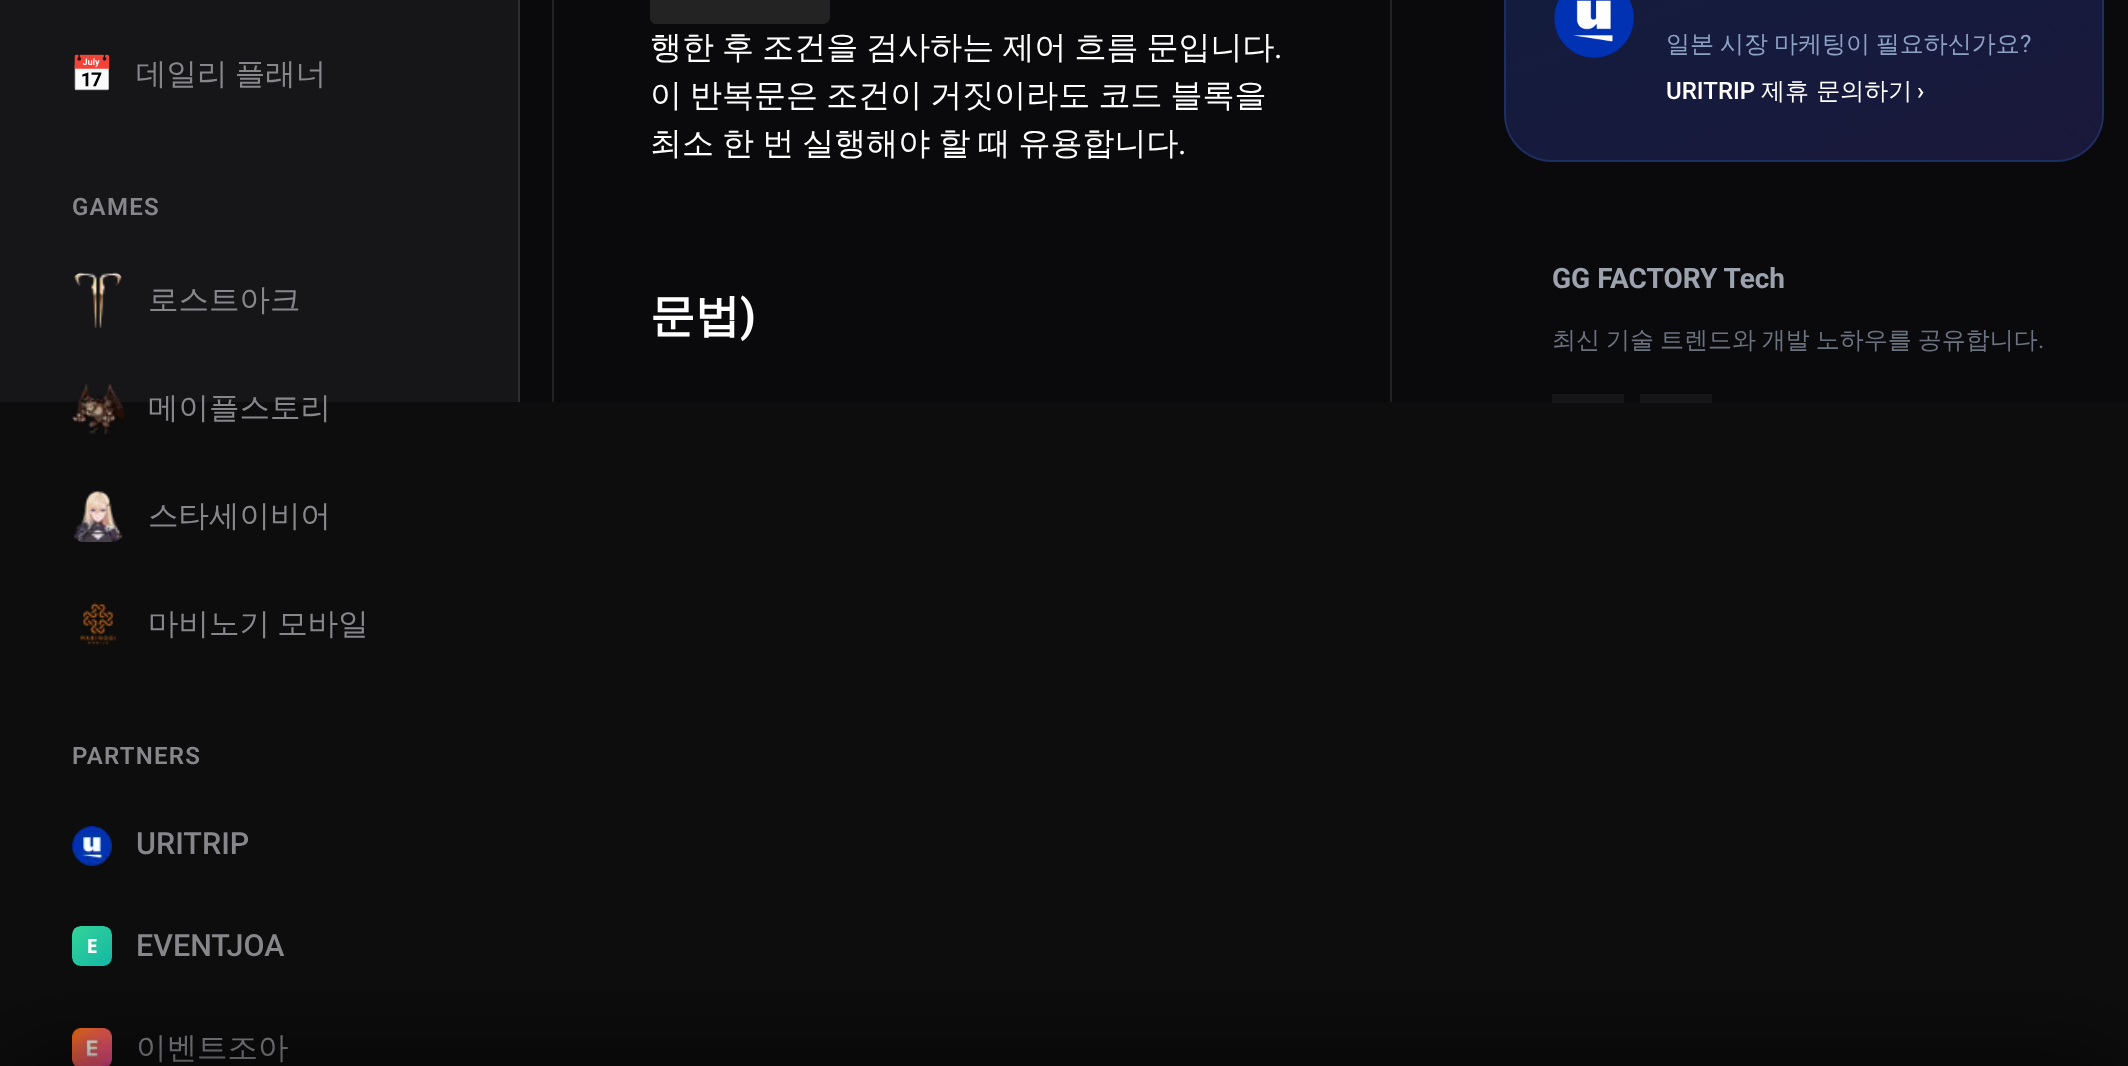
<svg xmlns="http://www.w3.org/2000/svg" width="2128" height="1066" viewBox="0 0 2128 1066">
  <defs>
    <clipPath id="clip1"><rect x="520" y="0" width="1608" height="402"/></clipPath>
    <clipPath id="clip2"><rect x="1504" y="-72" width="600" height="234" rx="48"/></clipPath>
    <linearGradient id="g1" gradientUnits="userSpaceOnUse" x1="1131" y1="-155" x2="1285" y2="245"><stop offset="0" stop-color="#121d3e"/><stop offset="1" stop-color="#1a183b"/></linearGradient>
    <linearGradient id="g2" gradientUnits="userSpaceOnUse" x1="1727" y1="-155" x2="1881" y2="245"><stop offset="0" stop-color="#121d3e"/><stop offset="1" stop-color="#1a183b"/></linearGradient>
    <linearGradient id="g3" gradientUnits="userSpaceOnUse" x1="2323" y1="-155" x2="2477" y2="245"><stop offset="0" stop-color="#121d3e"/><stop offset="1" stop-color="#1a183b"/></linearGradient>
    <linearGradient id="g4" gradientUnits="userSpaceOnUse" x1="1727" y1="75" x2="1881" y2="475"><stop offset="0" stop-color="#121d3e"/><stop offset="1" stop-color="#1a183b"/></linearGradient>
    <filter id="blur1" x="-50%" y="-200%" width="200%" height="500%"><feGaussianBlur stdDeviation="40"/></filter>
  </defs>
  <rect width="100%" height="100%" fill="#0d0d0d"/>
  <rect x="0" y="0" width="518" height="402" fill="#161618"/>
  <rect x="518" y="0" width="2" height="402" fill="#2d2d2f"/>
  <text x="70" y="86" font-family="Noto Color Emoji" font-size="35" fill="#86868b">📅</text>
  <text x="136" y="84" word-spacing="-2" font-family="WenQuanYi Zen Hei" font-size="30.5" font-weight="500" fill="#86868b">데일리 플래너</text>
  <text x="72" y="215" font-family="Roboto" font-size="24" font-weight="600" letter-spacing="1.25" fill="#86868b">GAMES</text>
  <image x="74" y="272" width="48" height="56" href="img1.png"/>
  <text x="148" y="310" font-family="WenQuanYi Zen Hei" font-size="30.5" font-weight="500" fill="#86868b">로스트아크</text>
  <image x="72" y="384" width="52" height="50" href="img2.png"/>
  <text x="148" y="418" font-family="WenQuanYi Zen Hei" font-size="30.5" font-weight="500" fill="#86868b">메이플스토리</text>
  <image x="73" y="490" width="50" height="52" href="img3.png"/>
  <text x="148" y="526" font-family="WenQuanYi Zen Hei" font-size="30.5" font-weight="500" fill="#86868b">스타세이비어</text>
  <image x="80" y="602" width="37" height="44" href="img4.png"/>
  <text x="148" y="634" word-spacing="-2" font-family="WenQuanYi Zen Hei" font-size="30.5" font-weight="500" fill="#86868b">마비노기 모바일</text>
  <text x="72" y="764" font-family="Roboto" font-size="24" font-weight="600" letter-spacing="1.25" fill="#86868b">PARTNERS</text>
  <image x="72" y="826" width="40" height="40" href="img5.png"/>
  <text x="136" y="854" font-family="Roboto" font-size="30.5" font-weight="500" fill="#86868b">URITRIP</text>
  <image x="72" y="926" width="40" height="40" href="img6.png"/>
  <text x="136" y="956" font-family="Roboto" font-size="30.5" font-weight="500" fill="#86868b">EVENTJOA</text>
  <image x="72" y="1028" width="40" height="38" href="img7.png"/>
  <text x="136" y="1058" font-family="WenQuanYi Zen Hei" font-size="30.5" font-weight="500" fill="#86868b">이벤트조아</text>
  <rect x="520" y="0" width="1608" height="402" fill="#0a0a0c"/>
  <g clip-path="url(#clip1)">
    <rect x="553" y="-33" width="838" height="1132" rx="31" fill="none" stroke="#232324" stroke-width="2"/>
  </g>
  <text x="650" y="58" word-spacing="-1.5" font-family="WenQuanYi Zen Hei" font-size="32" font-weight="500" fill="#ffffff">행한 후 조건을 검사하는 제어 흐름 문입니다</text>
  <path d="M656-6H662V24H656C652.5 24 650 21.5 650 18V0C650-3.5 652.5-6 656-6Z" fill="#232324"/>
  <rect x="662" y="0" width="154" height="24" fill="#232324"/>
  <path d="M816-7H823C827-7 830-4 830 0V17C830 21 827 24 823 24H816Z" fill="#232324"/>
  <text x="1274" y="58" font-family="Roboto" font-size="32" fill="#ffffff">.</text>
  <text x="650" y="106" word-spacing="-1.5" font-family="WenQuanYi Zen Hei" font-size="32" font-weight="500" fill="#ffffff">이 반복문은 조건이 거짓이라도 코드 블록을</text>
  <text x="650" y="154" word-spacing="-1.5" font-family="WenQuanYi Zen Hei" font-size="32" font-weight="500" fill="#ffffff">최소 한 번 실행해야 할 때 유용합니다</text>
  <text x="1178" y="154" font-family="Roboto" font-size="32" fill="#ffffff">.</text>
  <text x="650" y="331" font-family="WenQuanYi Zen Hei" font-size="45" font-weight="bold" fill="#ffffff">문법</text>
  <text x="740" y="331" font-family="Roboto" font-size="45" font-weight="bold" fill="#ffffff">)</text>
  <g clip-path="url(#clip2)">
    <rect x="1504" y="0" width="2" height="128" fill="url(#g1)"/>
    <rect x="1506" y="0" width="596" height="160" fill="url(#g2)"/>
    <rect x="2102" y="0" width="2" height="128" fill="url(#g3)"/>
    <rect x="1538" y="160" width="532" height="2" fill="url(#g4)"/>
  </g>
  <rect x="1505" y="-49" width="598" height="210" rx="47" fill="none" stroke="#3b82f6" stroke-opacity="0.2" stroke-width="2"/>
  <image x="1554" y="0" width="80" height="58" href="img8.png"/>
  <text x="1666" y="52" word-spacing="-1.25" font-family="WenQuanYi Zen Hei" font-size="24" font-weight="500" fill="#8ca1c4">일본 시장 마케팅이 필요하신가요</text>
  <text x="2020" y="52" font-family="Roboto" font-size="24" fill="#8ca1c4">?</text>
  <text x="1666" y="99" font-family="Roboto" font-size="24" font-weight="500" fill="#ffffff">URITRIP</text>
  <text x="1761" y="99" font-family="WenQuanYi Zen Hei" font-size="24" font-weight="500" fill="#ffffff">제휴 문의하기</text>
  <text x="1917" y="99" font-family="Roboto" font-size="24" font-weight="500" fill="#ffffff">›</text>
  <text x="1552" y="288" font-family="Roboto" font-size="28" font-weight="bold" fill="#9ca3af">GG FACTORY Tech</text>
  <text x="1552" y="348" word-spacing="-1.25" font-family="WenQuanYi Zen Hei" font-size="24" font-weight="500" fill="#6b7280">최신 기술 트렌드와 개발 노하우를 공유합니다</text>
  <text x="2038" y="348" font-family="Roboto" font-size="24" fill="#6b7280">.</text>
  <rect x="1552" y="394" width="72" height="9" fill="#ffffff" fill-opacity="0.05"/>
  <rect x="1640" y="394" width="72" height="9" fill="#ffffff" fill-opacity="0.05"/>
  <rect x="0" y="1046" width="2128" height="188" rx="48" fill="#000000" fill-opacity="0.5" filter="url(#blur1)"/>
</svg>
